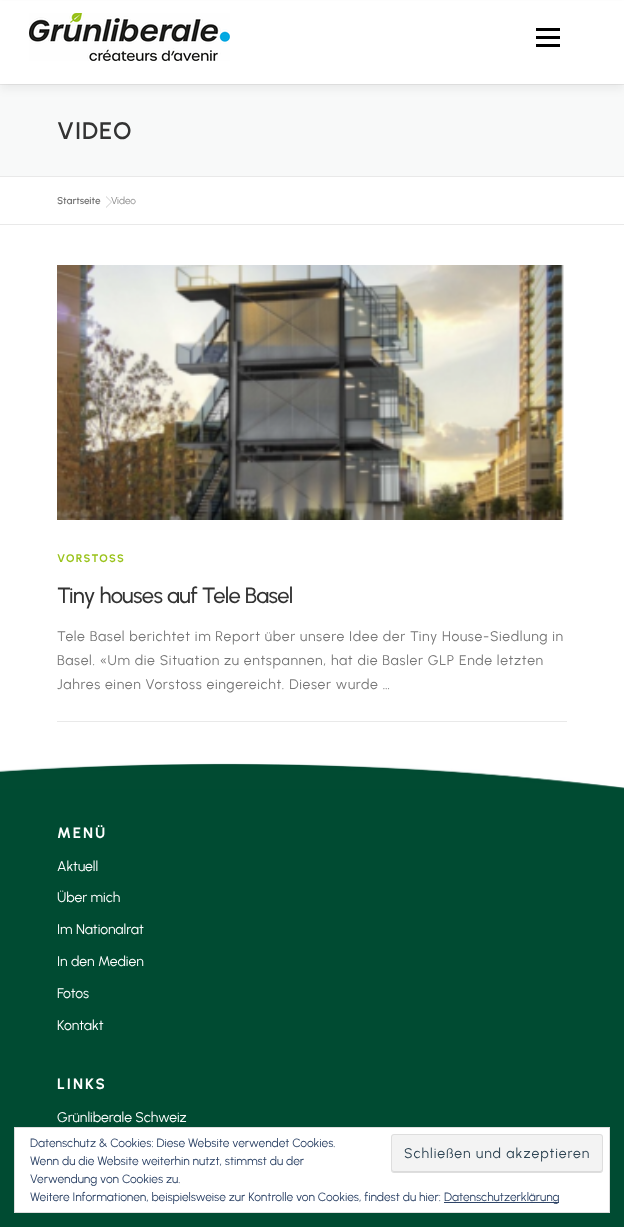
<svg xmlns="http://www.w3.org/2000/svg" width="624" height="1227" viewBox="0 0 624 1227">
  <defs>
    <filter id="blur1" x="-50%" y="-200%" width="200%" height="500%"><feGaussianBlur stdDeviation="5"/></filter>
  </defs>
  <rect width="100%" height="100%" fill="#ffffff"/>
  <rect x="0" y="85" width="624" height="91" fill="#f8f9f9"/>
  <rect x="0" y="84" width="624" height="1" fill="#e9e9e9"/>
  <rect x="0" y="5" width="624" height="84" fill="#323232" fill-opacity="0.06" filter="url(#blur1)"/>
  <rect x="0" y="1" width="624" height="83" fill="#ffffff"/>
  <image x="29" y="13" width="201" height="48" href="img1.png"/>
  <rect x="536" y="36" width="24" height="3" fill="#000000"/>
  <rect x="536" y="28" width="24" height="3" fill="#000000"/>
  <rect x="536" y="44" width="24" height="3" fill="#000000"/>
  <rect x="0" y="176" width="624" height="1" fill="#e9e9e9"/>
  <text x="57" y="139" font-family="Urbanist" font-size="24" font-weight="600" letter-spacing="1" fill="#333333">VIDEO</text>
  <rect x="0" y="224" width="624" height="1" fill="#e9e9e9"/>
  <text x="57" y="204" font-family="Urbanist" font-size="10" font-weight="600" fill="#777777">Startseite</text>
  <path d="M106 208V196L112 202Z" fill="#000000" fill-opacity="0.2"/>
  <path d="M106 207V197L111 202Z" fill="#ffffff"/>
  <text x="111" y="204" font-family="Urbanist" font-size="10" fill="#858585">Video</text>
  <rect x="57" y="721" width="510" height="1" fill="#e9e9e9"/>
  <image x="57" y="265" width="507" height="255" href="img2.png"/>
  <text x="57" y="562" font-family="Urbanist" font-size="11" font-weight="bold" letter-spacing="1.25" fill="#9ac31c">VORSTOSS</text>
  <text x="57" y="603" font-family="Urbanist" font-size="22" font-weight="500" letter-spacing="-0.6" fill="#333333">Tiny houses auf Tele Basel</text>
  <text x="57" y="641" font-family="Urbanist" font-size="14" letter-spacing="0.7" fill="#777777">Tele Basel berichtet im Report über unsere Idee der Tiny House-Siedlung in</text>
  <text x="57" y="665" font-family="Urbanist" font-size="14" letter-spacing="0.7" fill="#777777">Basel. «Um die Situation zu entspannen, hat die Basler GLP Ende letzten</text>
  <text x="57" y="689" font-family="Urbanist" font-size="14" letter-spacing="0.7" fill="#777777">Jahres einen Vorstoss eingereicht. Dieser wurde …</text>
  <rect x="0" y="789" width="624" height="438" fill="#004b32"/>
  <image x="0" y="762" width="624" height="27" href="img3.png"/>
  <text x="57" y="838" font-family="Urbanist" font-size="15" font-weight="bold" letter-spacing="2" fill="#ffffff">MENÜ</text>
  <text x="57" y="871" font-family="Urbanist" font-size="14" fill="#ffffff">Aktuell</text>
  <text x="57" y="902" font-family="Urbanist" font-size="14" fill="#ffffff">Über mich</text>
  <text x="57" y="934" font-family="Urbanist" font-size="14" fill="#ffffff">Im Nationalrat</text>
  <text x="57" y="966" font-family="Urbanist" font-size="14" fill="#ffffff">In den Medien</text>
  <text x="57" y="998" font-family="Urbanist" font-size="14" fill="#ffffff">Fotos</text>
  <text x="57" y="1030" font-family="Urbanist" font-size="14" fill="#ffffff">Kontakt</text>
  <text x="57" y="1089" font-family="Urbanist" font-size="15" font-weight="bold" letter-spacing="2" fill="#ffffff">LINKS</text>
  <text x="57" y="1122" font-family="Urbanist" font-size="14" fill="#ffffff">Grünliberale Schweiz</text>
  <rect x="14.5" y="1127.5" width="595" height="85" fill="#ffffff" stroke="#dedede"/>
  <text x="30" y="1147" font-family="Urbanist" font-size="12" fill="#2e4467">Datenschutz &amp; Cookies: Diese Website verwendet Cookies.</text>
  <text x="30" y="1165" font-family="Urbanist" font-size="12" fill="#2e4467">Wenn du die Website weiterhin nutzt, stimmst du der</text>
  <rect x="391" y="1134" width="212" height="39" rx="3" fill="#f3f3f3"/>
  <path d="M392 1169C392 1170 392 1172 394 1172H600C602 1172 602 1170 602 1169C602 1170 601 1171 600 1171H394C393 1171 392 1170 392 1169Z" fill="#dbdbdb"/>
  <rect x="391.5" y="1134.5" width="211" height="38" rx="2.5" fill="none" stroke="#dedede"/>
  <text x="404" y="1158" font-family="Urbanist" font-size="14" letter-spacing="1" fill="#2e4453">Schließen und akzeptieren</text>
  <text x="30" y="1183" font-family="Urbanist" font-size="12" fill="#2e4467">Verwendung von Cookies zu.</text>
  <text x="30" y="1201" font-family="Urbanist" font-size="12" fill="#2e4467">Weitere Informationen, beispielsweise zur Kontrolle von Cookies, findest du hier:</text>
  <rect x="444" y="1202" width="115" height="1" fill="#2e4467"/>
  <text x="444" y="1201" font-family="Urbanist" font-size="12" fill="#2e4467">Datenschutzerklärung</text>
</svg>
